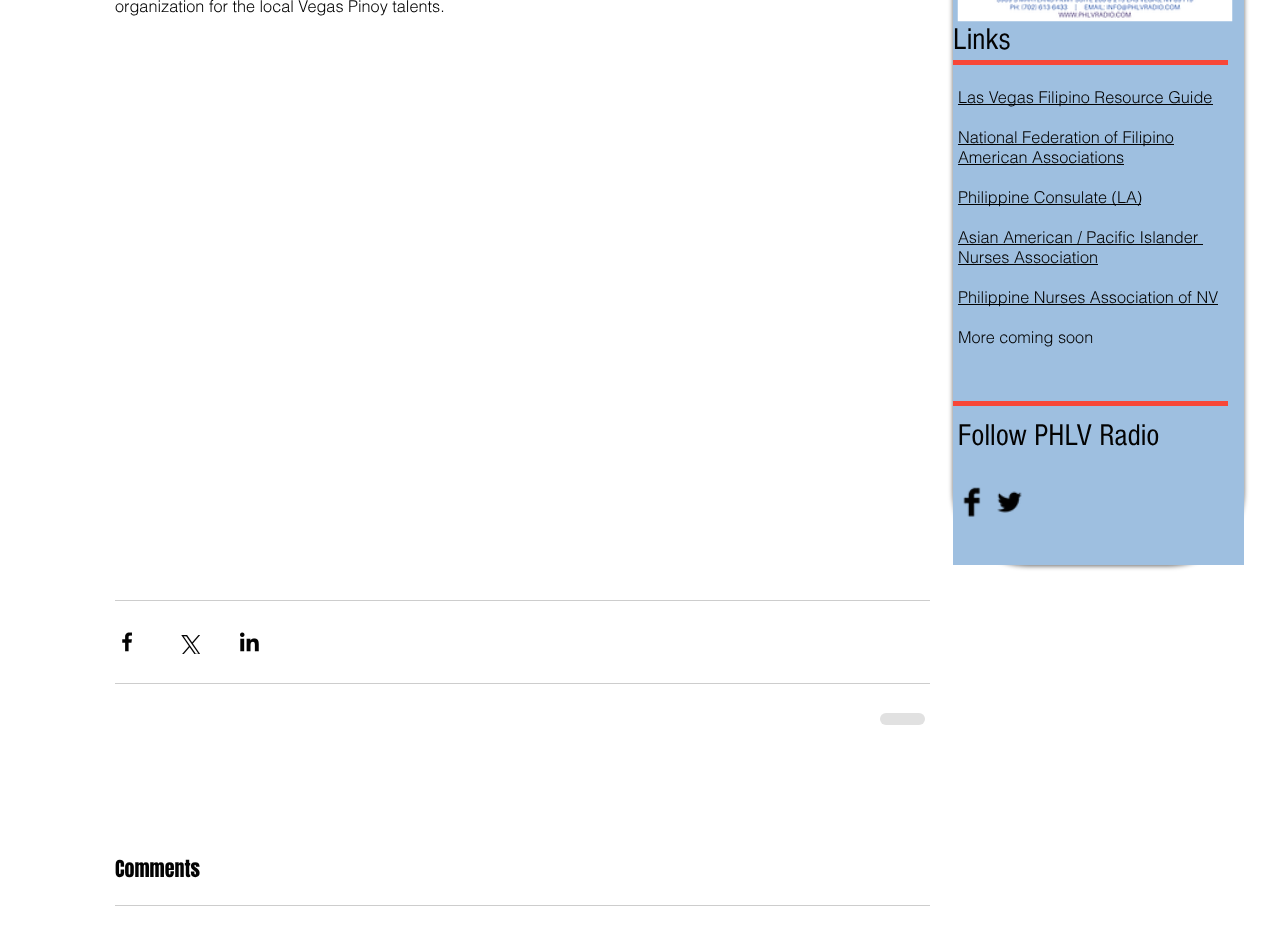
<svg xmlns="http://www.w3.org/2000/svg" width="1287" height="930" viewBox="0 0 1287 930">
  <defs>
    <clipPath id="clip1"><path d="M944 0H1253V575H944ZM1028-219H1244V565H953V-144C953-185.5 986.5-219 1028-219Z" clip-rule="evenodd"/></clipPath>
    <filter id="blur1" x="-50%" y="-200%" width="200%" height="500%"><feGaussianBlur stdDeviation="2.5"/></filter>
  </defs>
  <rect width="100%" height="100%" fill="#ffffff"/>
  <text x="115" y="12" font-family="helvetica" font-size="16.25" font-weight="300" fill="#030303">organization for the local Vegas Pinoy talents.</text>
  <rect x="115" y="600" width="815" height="1" fill="#cdcdcd"/>
  <image x="122" y="632" width="10" height="20" href="img1.png"/>
  <image x="181" y="635" width="19" height="19" href="img2.png"/>
  <image x="240" y="632" width="19" height="20" href="img3.png"/>
  <rect x="115" y="683" width="815" height="1" fill="#cdcdcd"/>
  <rect x="880" y="713" width="45" height="12" rx="6" fill="#e1e1e1"/>
  <text x="115" y="877" font-family="Anton" font-size="20" fill="#030303">Comments</text>
  <rect x="115" y="905" width="815" height="1" fill="#cdcdcd"/>
  <g clip-path="url(#clip1)">
    <rect x="953" y="-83" width="291" height="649" rx="75" fill="#000000" fill-opacity="0.6" filter="url(#blur1)"/>
  </g>
  <rect x="953" y="0" width="291" height="565" fill="#3078be" fill-opacity="0.47"/>
  <image x="957" y="0" width="276" height="22" href="img4.png"/>
  <text x="953" y="49" font-family="'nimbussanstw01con'" font-size="31.25" fill="#030303">Links</text>
  <rect x="953" y="60" width="275" height="5" fill="#f84738"/>
  <rect x="958" y="104" width="255" height="1" fill="#030303"/>
  <text x="958" y="103" font-family="helvetica" font-size="16.25" font-weight="300" fill="#030303">Las Vegas Filipino Resource Guide</text>
  <rect x="958" y="144" width="216" height="1" fill="#030303"/>
  <text x="958" y="143" font-family="helvetica" font-size="16.25" font-weight="300" fill="#030303">National Federation of Filipino</text>
  <text x="958" y="163" font-family="helvetica" font-size="16.25" font-weight="300" fill="#030303">American Associations</text>
  <rect x="958" y="164" width="166" height="1" fill="#030303"/>
  <rect x="958" y="204" width="183" height="1" fill="#030303"/>
  <text x="958" y="203" font-family="helvetica" font-size="16.25" font-weight="300" fill="#030303">Philippine Consulate (LA)</text>
  <rect x="958" y="244" width="245" height="1" fill="#030303"/>
  <text x="958" y="243" font-family="helvetica" font-size="16.25" font-weight="300" fill="#030303">Asian American / Pacific Islander</text>
  <text x="958" y="263" font-family="helvetica" font-size="16.25" font-weight="300" fill="#030303">Nurses Association</text>
  <rect x="958" y="264" width="140" height="1" fill="#030303"/>
  <rect x="958" y="304" width="260" height="1" fill="#030303"/>
  <text x="958" y="303" font-family="helvetica" font-size="16.25" font-weight="300" fill="#030303">Philippine Nurses Association of NV</text>
  <text x="958" y="343" font-family="helvetica" font-size="16.25" font-weight="300" fill="#030303">More coming soon</text>
  <rect x="953" y="401" width="275" height="5" fill="#f84738"/>
  <text x="958" y="445" font-family="'nimbussanstw01con'" font-size="31.25" fill="#030303">Follow PHLV Radio</text>
  <image x="963" y="487" width="18" height="30" href="img5.png"/>
  <image x="997" y="491" width="25" height="22" href="img6.png"/>
</svg>
